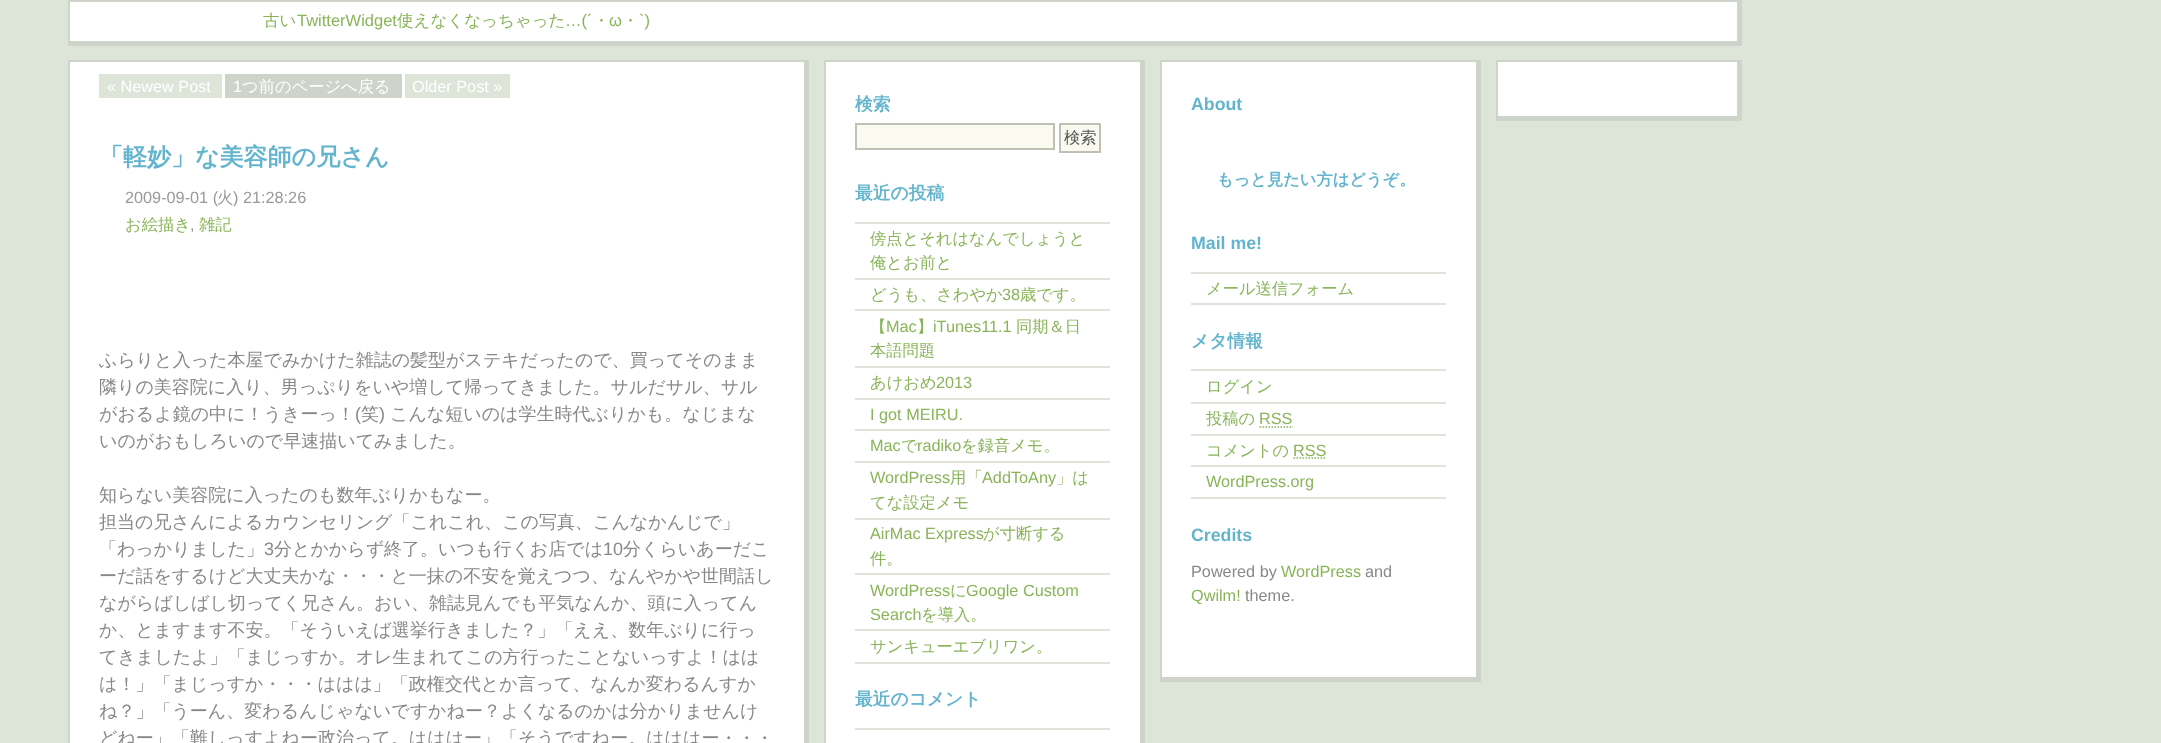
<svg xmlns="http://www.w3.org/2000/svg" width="2161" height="743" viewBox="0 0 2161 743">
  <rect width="100%" height="100%" fill="#dde5d9"/>
  <rect x="70" y="2" width="1667" height="39" fill="#ffffff"/>
  <rect x="68" y="0" width="1674" height="2" fill="#ced4ca"/>
  <rect x="1737" y="0" width="5" height="45" fill="#ced4ca"/>
  <rect x="68" y="41" width="1674" height="5" fill="#ced4ca"/>
  <rect x="68" y="0" width="2" height="45" fill="#ced4ca"/>
  <text x="263" y="26" font-family="WenQuanYi Zen Hei" font-size="16.5" font-weight="500" fill="#8ab459">古い</text>
  <text x="297" y="26" font-family="Liberation Sans" font-size="16.5" fill="#8ab459">TwitterWidget</text>
  <text x="397" y="26" font-family="WenQuanYi Zen Hei" font-size="16.5" font-weight="500" fill="#8ab459">使えなくなっちゃった</text>
  <text x="565" y="26" font-family="Liberation Sans" font-size="16.5" fill="#8ab459">…(´</text>
  <text x="593" y="26" font-family="WenQuanYi Zen Hei" font-size="16.5" font-weight="500" fill="#8ab459">・</text>
  <text x="609" y="26" font-family="Liberation Sans" font-size="16.5" fill="#8ab459">ω</text>
  <text x="622" y="26" font-family="WenQuanYi Zen Hei" font-size="16.5" font-weight="500" fill="#8ab459">・</text>
  <text x="639" y="26" font-family="Liberation Sans" font-size="16.5" fill="#8ab459">`)</text>
  <rect x="70" y="62" width="734" height="681" fill="#ffffff"/>
  <rect x="68" y="60" width="741" height="2" fill="#ced4ca"/>
  <rect x="804" y="60" width="5" height="683" fill="#ced4ca"/>
  <rect x="68" y="60" width="2" height="683" fill="#ced4ca"/>
  <rect x="99" y="74" width="123" height="24" fill="#dde5d9"/>
  <text x="107" y="92" font-family="Liberation Sans" font-size="16.25" fill="#ffffff">« Newew Post</text>
  <rect x="225" y="74" width="177" height="24" fill="#ced4ca"/>
  <text x="233" y="92" font-family="Liberation Sans" font-size="16.25" fill="#ffffff">1</text>
  <text x="242" y="92" font-family="WenQuanYi Zen Hei" font-size="16.25" font-weight="500" fill="#ffffff">つ前のページへ戻る</text>
  <rect x="405" y="74" width="105" height="24" fill="#dde5d9"/>
  <text x="412" y="92" font-family="Liberation Sans" font-size="16.25" fill="#ffffff">Older Post »</text>
  <text x="99" y="165" font-family="WenQuanYi Zen Hei" font-size="24" font-weight="bold" fill="#63b4cd">「軽妙」な美容師の兄さん</text>
  <text x="125" y="203" font-family="Liberation Sans" font-size="16.25" fill="#999999">2009-09-01 (</text>
  <text x="217" y="203" font-family="WenQuanYi Zen Hei" font-size="16.25" font-weight="500" fill="#999999">火</text>
  <text x="233" y="203" font-family="Liberation Sans" font-size="16.25" fill="#999999">) 21:28:26</text>
  <text x="125" y="230" font-family="WenQuanYi Zen Hei" font-size="16.25" font-weight="500" fill="#8ab459">お絵描き</text>
  <text x="190" y="230" font-family="Liberation Sans" font-size="16.25" fill="#999999">,</text>
  <text x="199" y="230" font-family="WenQuanYi Zen Hei" font-size="16.25" font-weight="500" fill="#8ab459">雑記</text>
  <text x="99" y="366" font-family="WenQuanYi Zen Hei" font-size="18" font-weight="500" fill="#888888">ふらりと入った本屋でみかけた雑誌の髪型がステキだったので、買ってそのまま</text>
  <text x="99" y="393" font-family="WenQuanYi Zen Hei" font-size="18" font-weight="500" fill="#888888">隣りの美容院に入り、男っぷりをいや増して帰ってきました。サルだサル、サル</text>
  <text x="99" y="420" font-family="WenQuanYi Zen Hei" font-size="18" font-weight="500" fill="#888888">がおるよ鏡の中に！うきーっ！</text>
  <text x="355" y="420" font-family="Liberation Sans" font-size="18" fill="#888888">(</text>
  <text x="361" y="420" font-family="WenQuanYi Zen Hei" font-size="18" font-weight="500" fill="#888888">笑</text>
  <text x="379" y="420" font-family="Liberation Sans" font-size="18" fill="#888888">)</text>
  <text x="390" y="420" font-family="WenQuanYi Zen Hei" font-size="18" font-weight="500" fill="#888888">こんな短いのは学生時代ぶりかも。なじまな</text>
  <text x="99" y="447" font-family="WenQuanYi Zen Hei" font-size="18" font-weight="500" fill="#888888">いのがおもしろいので早速描いてみました。</text>
  <text x="99" y="501" font-family="WenQuanYi Zen Hei" font-size="18" font-weight="500" fill="#888888">知らない美容院に入ったのも数年ぶりかもなー。</text>
  <text x="99" y="528" font-family="WenQuanYi Zen Hei" font-size="18" font-weight="500" fill="#888888">担当の兄さんによるカウンセリング「これこれ、この写真、こんなかんじで」</text>
  <text x="99" y="555" font-family="WenQuanYi Zen Hei" font-size="18" font-weight="500" fill="#888888">「わっかりました」</text>
  <text x="264" y="555" font-family="Liberation Sans" font-size="18" fill="#888888">3</text>
  <text x="274" y="555" font-family="WenQuanYi Zen Hei" font-size="18" font-weight="500" fill="#888888">分とかからず終了。いつも行くお店では</text>
  <text x="603" y="555" font-family="Liberation Sans" font-size="18" fill="#888888">10</text>
  <text x="623" y="555" font-family="WenQuanYi Zen Hei" font-size="18" font-weight="500" fill="#888888">分くらいあーだこ</text>
  <text x="99" y="582" font-family="WenQuanYi Zen Hei" font-size="18" font-weight="500" fill="#888888">ーだ話をするけど大丈夫かな・・・と一抹の不安を覚えつつ、なんやかや世間話し</text>
  <text x="99" y="609" font-family="WenQuanYi Zen Hei" font-size="18" font-weight="500" fill="#888888">ながらばしばし切ってく兄さん。おい、雑誌見んでも平気なんか、頭に入ってん</text>
  <text x="99" y="636" font-family="WenQuanYi Zen Hei" font-size="18" font-weight="500" fill="#888888">か、とますます不安。「そういえば選挙行きました？」「ええ、数年ぶりに行っ</text>
  <text x="99" y="663" font-family="WenQuanYi Zen Hei" font-size="18" font-weight="500" fill="#888888">てきましたよ」「まじっすか。オレ生まれてこの方行ったことないっすよ！はは</text>
  <text x="99" y="690" font-family="WenQuanYi Zen Hei" font-size="18" font-weight="500" fill="#888888">は！」「まじっすか・・・ははは」「政権交代とか言って、なんか変わるんすか</text>
  <text x="99" y="717" font-family="WenQuanYi Zen Hei" font-size="18" font-weight="500" fill="#888888">ね？」「うーん、変わるんじゃないですかねー？よくなるのかは分かりませんけ</text>
  <text x="99" y="744" font-family="WenQuanYi Zen Hei" font-size="18" font-weight="500" fill="#888888">どねー」「難しっすよねー政治って。はははー」「そうですねー。はははー・・・</text>
  <rect x="826" y="62" width="314" height="681" fill="#ffffff"/>
  <rect x="824" y="60" width="321" height="2" fill="#ced4ca"/>
  <rect x="1140" y="60" width="5" height="683" fill="#ced4ca"/>
  <rect x="824" y="60" width="2" height="683" fill="#ced4ca"/>
  <text x="855" y="110" font-family="WenQuanYi Zen Hei" font-size="17.75" font-weight="bold" fill="#63b4cd">検索</text>
  <rect x="856" y="124" width="198" height="25" fill="#fafaf0" stroke="#c1c0b5" stroke-width="2"/>
  <rect x="1060" y="124" width="40" height="28" fill="#fafaf0" stroke="#c1c0b5" stroke-width="2"/>
  <text x="1064" y="143" font-family="WenQuanYi Zen Hei" font-size="16.25" font-weight="500" fill="#555555">検索</text>
  <text x="855" y="199" font-family="WenQuanYi Zen Hei" font-size="17.75" font-weight="bold" fill="#63b4cd">最近の投稿</text>
  <rect x="855" y="222" width="255" height="2" fill="#dee4da"/>
  <rect x="855" y="278" width="255" height="2" fill="#dee4da"/>
  <text x="870" y="244" font-family="WenQuanYi Zen Hei" font-size="16.25" font-weight="500" fill="#8ab459">傍点とそれはなんでしょうと</text>
  <text x="870" y="268" font-family="WenQuanYi Zen Hei" font-size="16.25" font-weight="500" fill="#8ab459">俺とお前と</text>
  <rect x="855" y="309" width="255" height="2" fill="#dee4da"/>
  <text x="870" y="300" font-family="WenQuanYi Zen Hei" font-size="16.25" font-weight="500" fill="#8ab459">どうも、さわやか</text>
  <text x="1002" y="300" font-family="Liberation Sans" font-size="16.25" fill="#8ab459">38</text>
  <text x="1020" y="300" font-family="WenQuanYi Zen Hei" font-size="16.25" font-weight="500" fill="#8ab459">歳です。</text>
  <rect x="855" y="366" width="255" height="2" fill="#dee4da"/>
  <text x="870" y="332" font-family="WenQuanYi Zen Hei" font-size="16.25" font-weight="500" fill="#8ab459">【</text>
  <text x="886" y="332" font-family="Liberation Sans" font-size="16.25" fill="#8ab459">Mac</text>
  <text x="917" y="332" font-family="WenQuanYi Zen Hei" font-size="16.25" font-weight="500" fill="#8ab459">】</text>
  <text x="933" y="332" font-family="Liberation Sans" font-size="16.25" fill="#8ab459">iTunes11.1</text>
  <text x="1016" y="332" font-family="WenQuanYi Zen Hei" font-size="16.25" font-weight="500" fill="#8ab459">同期＆日</text>
  <text x="870" y="356" font-family="WenQuanYi Zen Hei" font-size="16.25" font-weight="500" fill="#8ab459">本語問題</text>
  <rect x="855" y="398" width="255" height="2" fill="#dee4da"/>
  <text x="870" y="388" font-family="WenQuanYi Zen Hei" font-size="16.25" font-weight="500" fill="#8ab459">あけおめ</text>
  <text x="936" y="388" font-family="Liberation Sans" font-size="16.25" fill="#8ab459">2013</text>
  <rect x="855" y="429" width="255" height="2" fill="#dee4da"/>
  <text x="870" y="420" font-family="Liberation Sans" font-size="16.25" fill="#8ab459">I got MEIRU.</text>
  <rect x="855" y="461" width="255" height="2" fill="#dee4da"/>
  <text x="870" y="451" font-family="Liberation Sans" font-size="16.25" fill="#8ab459">Mac</text>
  <text x="901" y="451" font-family="WenQuanYi Zen Hei" font-size="16.25" font-weight="500" fill="#8ab459">で</text>
  <text x="917" y="451" font-family="Liberation Sans" font-size="16.25" fill="#8ab459">radiko</text>
  <text x="961" y="451" font-family="WenQuanYi Zen Hei" font-size="16.25" font-weight="500" fill="#8ab459">を録音メモ。</text>
  <rect x="855" y="518" width="255" height="2" fill="#dee4da"/>
  <text x="870" y="483" font-family="Liberation Sans" font-size="16.25" fill="#8ab459">WordPress</text>
  <text x="950" y="483" font-family="WenQuanYi Zen Hei" font-size="16.25" font-weight="500" fill="#8ab459">用「</text>
  <text x="982" y="483" font-family="Liberation Sans" font-size="16.25" fill="#8ab459">AddToAny</text>
  <text x="1056" y="483" font-family="WenQuanYi Zen Hei" font-size="16.25" font-weight="500" fill="#8ab459">」は</text>
  <text x="870" y="508" font-family="WenQuanYi Zen Hei" font-size="16.25" font-weight="500" fill="#8ab459">てな設定メモ</text>
  <rect x="855" y="573" width="255" height="2" fill="#dee4da"/>
  <text x="870" y="539" font-family="Liberation Sans" font-size="16.25" fill="#8ab459">AirMac Express</text>
  <text x="983" y="539" font-family="WenQuanYi Zen Hei" font-size="16.25" font-weight="500" fill="#8ab459">が寸断する</text>
  <text x="870" y="564" font-family="WenQuanYi Zen Hei" font-size="16.25" font-weight="500" fill="#8ab459">件。</text>
  <rect x="855" y="629" width="255" height="2" fill="#dee4da"/>
  <text x="870" y="596" font-family="Liberation Sans" font-size="16.25" fill="#8ab459">WordPress</text>
  <text x="950" y="596" font-family="WenQuanYi Zen Hei" font-size="16.25" font-weight="500" fill="#8ab459">に</text>
  <text x="966" y="596" font-family="Liberation Sans" font-size="16.25" fill="#8ab459">Google Custom</text>
  <text x="870" y="620" font-family="Liberation Sans" font-size="16.25" fill="#8ab459">Search</text>
  <text x="921" y="620" font-family="WenQuanYi Zen Hei" font-size="16.25" font-weight="500" fill="#8ab459">を導入。</text>
  <rect x="855" y="662" width="255" height="2" fill="#dee4da"/>
  <text x="870" y="652" font-family="WenQuanYi Zen Hei" font-size="16.25" font-weight="500" fill="#8ab459">サンキューエブリワン。</text>
  <text x="855" y="705" font-family="WenQuanYi Zen Hei" font-size="17.75" font-weight="bold" fill="#63b4cd">最近のコメント</text>
  <rect x="855" y="728" width="255" height="2" fill="#dee4da"/>
  <rect x="1162" y="62" width="314" height="615" fill="#ffffff"/>
  <rect x="1160" y="60" width="321" height="2" fill="#ced4ca"/>
  <rect x="1476" y="60" width="5" height="621" fill="#ced4ca"/>
  <rect x="1160" y="677" width="321" height="5" fill="#ced4ca"/>
  <rect x="1160" y="60" width="2" height="621" fill="#ced4ca"/>
  <text x="1191" y="110" font-family="Liberation Sans" font-size="17.75" font-weight="bold" fill="#63b4cd">About</text>
  <text x="1217" y="185" font-family="WenQuanYi Zen Hei" font-size="16.25" font-weight="bold" fill="#63b4cd">もっと見たい方はどうぞ。</text>
  <text x="1191" y="249" font-family="Liberation Sans" font-size="17.75" font-weight="bold" fill="#63b4cd">Mail me!</text>
  <rect x="1191" y="272" width="255" height="2" fill="#dee4da"/>
  <rect x="1191" y="303" width="255" height="2" fill="#dee4da"/>
  <text x="1206" y="294" font-family="WenQuanYi Zen Hei" font-size="16.25" font-weight="500" fill="#8ab459">メール送信フォーム</text>
  <text x="1191" y="347" font-family="WenQuanYi Zen Hei" font-size="17.75" font-weight="bold" fill="#63b4cd">メタ情報</text>
  <rect x="1191" y="369" width="255" height="2" fill="#dee4da"/>
  <rect x="1191" y="402" width="255" height="2" fill="#dee4da"/>
  <text x="1206" y="392" font-family="WenQuanYi Zen Hei" font-size="16.25" font-weight="500" fill="#8ab459">ログイン</text>
  <rect x="1191" y="434" width="255" height="2" fill="#dee4da"/>
  <text x="1206" y="424" font-family="WenQuanYi Zen Hei" font-size="16.25" font-weight="500" fill="#8ab459">投稿の</text>
  <text x="1259" y="424" font-family="Liberation Sans" font-size="16.25" fill="#8ab459">RSS</text>
  <path d="M1259.5 427H1293" fill="none" stroke="#8ab459" stroke-width="1.5" stroke-dasharray="1.5 1.5"/>
  <rect x="1191" y="465" width="255" height="2" fill="#dee4da"/>
  <text x="1206" y="456" font-family="WenQuanYi Zen Hei" font-size="16.25" font-weight="500" fill="#8ab459">コメントの</text>
  <text x="1293" y="456" font-family="Liberation Sans" font-size="16.25" fill="#8ab459">RSS</text>
  <path d="M1293.5 458H1326.5" fill="none" stroke="#8ab459" stroke-width="1.5" stroke-dasharray="1.5 1.5"/>
  <rect x="1191" y="497" width="255" height="2" fill="#dee4da"/>
  <text x="1206" y="487" font-family="Liberation Sans" font-size="16.25" fill="#8ab459">WordPress.org</text>
  <text x="1191" y="541" font-family="Liberation Sans" font-size="17.75" font-weight="bold" fill="#63b4cd">Credits</text>
  <text x="1191" y="577" font-family="Liberation Sans" font-size="16.25" fill="#888888">Powered by</text>
  <text x="1281" y="577" font-family="Liberation Sans" font-size="16.25" fill="#8ab459">WordPress</text>
  <text x="1365" y="577" font-family="Liberation Sans" font-size="16.25" fill="#888888">and</text>
  <text x="1191" y="601" font-family="Liberation Sans" font-size="16.25" fill="#8ab459">Qwilm!</text>
  <text x="1245" y="601" font-family="Liberation Sans" font-size="16.25" fill="#888888">theme.</text>
  <rect x="1498" y="62" width="239" height="54" fill="#ffffff"/>
  <rect x="1496" y="60" width="246" height="2" fill="#ced4ca"/>
  <rect x="1737" y="60" width="5" height="60" fill="#ced4ca"/>
  <rect x="1496" y="116" width="246" height="5" fill="#ced4ca"/>
  <rect x="1496" y="60" width="2" height="60" fill="#ced4ca"/>
</svg>
